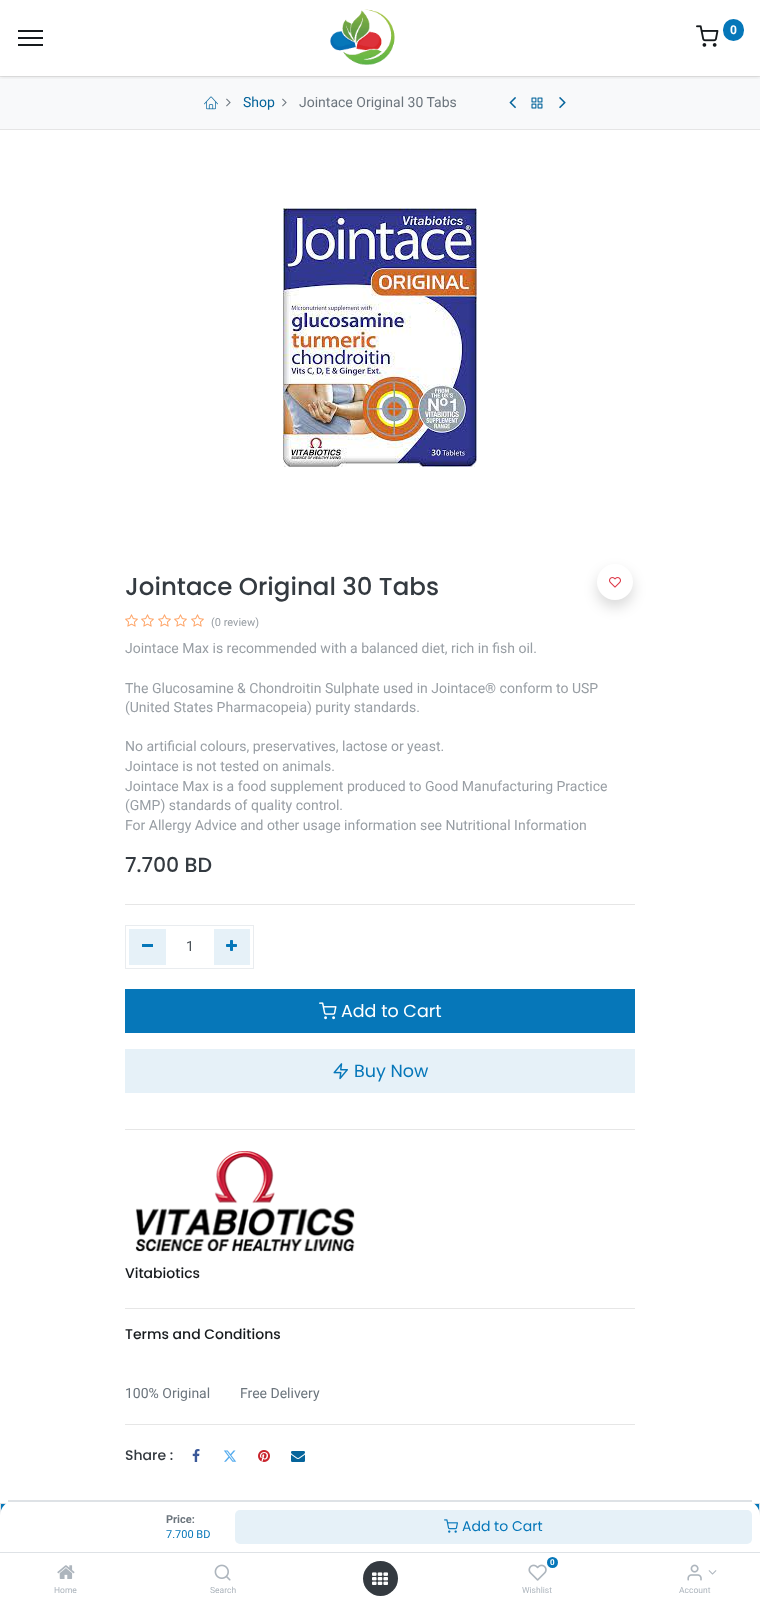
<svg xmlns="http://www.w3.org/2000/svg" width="760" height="1608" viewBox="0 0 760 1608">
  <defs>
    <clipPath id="clip1"><rect x="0" y="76" width="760" height="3"/></clipPath>
    <filter id="blur1" x="-50%" y="-200%" width="200%" height="500%"><feGaussianBlur stdDeviation="2"/></filter>
    <filter id="blur2" x="-50%" y="-200%" width="200%" height="500%"><feGaussianBlur stdDeviation="7"/></filter>
  </defs>
  <rect width="100%" height="100%" fill="#ffffff"/>
  <rect x="0" y="77" width="760" height="52" fill="#f8f9fa"/>
  <rect x="0" y="76" width="760" height="1" fill="#e5e5e5"/>
  <g clip-path="url(#clip1)">
    <rect x="0" y="2" width="760" height="76" fill="#000000" fill-opacity="0.07" filter="url(#blur1)"/>
  </g>
  <rect x="18" y="30" width="25" height="2" fill="#161a1d"/>
  <rect x="18" y="37" width="25" height="2" fill="#161a1d"/>
  <rect x="18" y="44" width="25" height="2" fill="#161a1d"/>
  <image x="330" y="9" width="65" height="56" href="img1.png"/>
  <image x="696" y="25" width="23" height="22" href="img2.png"/>
  <rect x="723" y="19" width="21" height="22" rx="10.5" fill="#0677b9"/>
  <text x="730" y="34" font-family="Roboto" font-size="12" font-weight="bold" fill="#ffffff">0</text>
  <rect x="0" y="129" width="760" height="1" fill="#e5e5e5"/>
  <image x="204" y="96" width="14" height="14" href="img3.png"/>
  <image x="226" y="98" width="5" height="9" href="img4.png"/>
  <text x="243" y="107" font-family="Roboto" font-size="14" fill="#05649b">Shop</text>
  <image x="282" y="98" width="5" height="9" href="img4.png"/>
  <text x="299" y="107" font-family="Roboto" font-size="14" fill="#6c757d">Jointace Original 30 Tabs</text>
  <image x="509" y="97" width="7" height="12" href="img5.png"/>
  <image x="531" y="97" width="12" height="12" href="img6.png"/>
  <image x="559" y="97" width="7" height="12" href="img7.png"/>
  <image x="283" y="208" width="194" height="259" href="img8.png"/>
  <text x="125" y="595" font-family="Poppins" font-size="24.5" font-weight="500" fill="#343a40">Jointace Original 30 Tabs</text>
  <image x="125" y="614" width="13" height="13" href="img9.png"/>
  <image x="141" y="614" width="13" height="13" href="img9.png"/>
  <image x="158" y="614" width="13" height="13" href="img9.png"/>
  <image x="174" y="614" width="13" height="13" href="img9.png"/>
  <image x="191" y="614" width="13" height="13" href="img9.png"/>
  <text x="211" y="626" font-family="Roboto" font-size="11" fill="#989ea4">(0 review)</text>
  <text x="125" y="653" font-family="Roboto" font-size="14" fill="#989ea4">Jointace Max is recommended with a balanced diet, rich in fish oil.</text>
  <text x="125" y="693" font-family="Roboto" font-size="14" fill="#989ea4">The Glucosamine &amp; Chondroitin Sulphate used in Jointace® conform to USP</text>
  <text x="125" y="712" font-family="Roboto" font-size="14" fill="#989ea4">(United States Pharmacopeia) purity standards.</text>
  <text x="125" y="751" font-family="Roboto" font-size="14" fill="#989ea4">No artificial colours, preservatives, lactose or yeast.</text>
  <text x="125" y="771" font-family="Roboto" font-size="14" fill="#989ea4">Jointace is not tested on animals.</text>
  <text x="125" y="791" font-family="Roboto" font-size="14" fill="#989ea4">Jointace Max is a food supplement produced to Good Manufacturing Practice</text>
  <text x="125" y="810" font-family="Roboto" font-size="14" fill="#989ea4">(GMP) standards of quality control.</text>
  <text x="125" y="830" font-family="Roboto" font-size="14" fill="#989ea4">For Allergy Advice and other usage information see Nutritional Information</text>
  <text x="125" y="872" font-family="Poppins" font-size="20.5" font-weight="500" fill="#343a40">7.700 BD</text>
  <rect x="125" y="904" width="510" height="1" fill="#e6e6e6"/>
  <rect x="125.5" y="925.5" width="128" height="43" fill="none" stroke="#e9ecef"/>
  <rect x="129" y="929" width="37" height="36" fill="#e6f1f8"/>
  <rect x="142" y="944" width="11" height="3" fill="#0677b9"/>
  <text x="186" y="951" font-family="Roboto" font-size="14" fill="#495057">1</text>
  <rect x="214" y="929" width="36" height="36" fill="#e6f1f8"/>
  <image x="226" y="940" width="11" height="11" href="img10.png"/>
  <rect x="597" y="571" width="36" height="36" rx="18" fill="#000000" fill-opacity="0.15" filter="url(#blur2)"/>
  <circle cx="615" cy="582" r="18" fill="#ffffff"/>
  <image x="609" y="577" width="12" height="11" href="img11.png"/>
  <rect x="125" y="989" width="510" height="44" fill="#0677b9"/>
  <image x="319" y="1002" width="18" height="18" href="img12.png"/>
  <text x="341" y="1017" font-family="Poppins" font-size="17.5" fill="#ffffff">Add to Cart</text>
  <rect x="125" y="1049" width="510" height="44" fill="#e6f1f8"/>
  <image x="333" y="1063" width="15" height="17" href="img13.png"/>
  <text x="354" y="1077" font-family="Poppins" font-size="17.5" fill="#0677b9">Buy Now</text>
  <rect x="125" y="1129" width="510" height="1" fill="#e6e6e6"/>
  <image x="135" y="1151" width="220" height="101" href="img14.png"/>
  <text x="125" y="1278" font-family="Poppins" font-size="14" font-weight="500" fill="#161a1d">Vitabiotics</text>
  <rect x="125" y="1308" width="510" height="1" fill="#e6e6e6"/>
  <text x="125" y="1339" font-family="Poppins" font-size="14" font-weight="500" fill="#161a1d">Terms and Conditions</text>
  <text x="125" y="1398" font-family="Roboto" font-size="14" fill="#6c757d">100% Original</text>
  <text x="240" y="1398" font-family="Roboto" font-size="14" fill="#6c757d">Free Delivery</text>
  <rect x="125" y="1424" width="510" height="1" fill="#e6e6e6"/>
  <text x="125" y="1460" font-family="Poppins" font-size="14" font-weight="500" fill="#343a40">Share :</text>
  <image x="192" y="1449" width="8" height="13" href="img15.png"/>
  <image x="223" y="1450" width="14" height="12" href="img16.png"/>
  <image x="258" y="1450" width="12" height="12" href="img17.png"/>
  <image x="291" y="1451" width="14" height="11" href="img18.png"/>
  <rect x="1" y="1504" width="758" height="7" fill="#0677b9"/>
  <rect x="0" y="1503" width="760" height="1" fill="#dee2e6"/>
  <rect x="759" y="1503" width="1" height="13" fill="#dee2e6"/>
  <rect x="0" y="1503" width="1" height="13" fill="#dee2e6"/>
  <path d="M16 1500H744C753 1500 760 1507 760 1516V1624H0V1516C0 1507 7 1500 16 1500Z" fill="#ffffff"/>
  <rect x="8" y="1500" width="744" height="2" fill="#dee2e6"/>
  <rect x="0" y="1552" width="760" height="1" fill="#dee2e6"/>
  <text x="166" y="1523" font-family="Roboto" font-size="11" font-weight="bold" fill="#6c757d">Price:</text>
  <text x="166" y="1538" font-family="Roboto" font-size="11" fill="#0677b9">7.700 BD</text>
  <rect x="235" y="1510" width="517" height="34" rx="5" fill="#e6f1f8"/>
  <image x="444" y="1519" width="14" height="14" href="img19.png"/>
  <text x="462" y="1531" font-family="Poppins" font-size="14" fill="#0677b9">Add to Cart</text>
  <image x="57" y="1565" width="18" height="14" href="img20.png"/>
  <text x="54" y="1593" font-family="Roboto" font-size="8.5" fill="#adb5bd">Home</text>
  <image x="214" y="1564" width="17" height="17" href="img21.png"/>
  <text x="210" y="1593" font-family="Roboto" font-size="8.5" fill="#adb5bd">Search</text>
  <circle cx="380.5" cy="1578.5" r="17.5" fill="#343a40"/>
  <image x="372" y="1572" width="16" height="13" href="img22.png"/>
  <circle cx="552.5" cy="1562.5" r="5.5" fill="#0677b9"/>
  <text x="550" y="1565" font-family="Roboto" font-size="8" font-weight="bold" fill="#ffffff">0</text>
  <image x="528" y="1564" width="19" height="17" href="img23.png"/>
  <text x="522" y="1593" font-family="Roboto" font-size="8.5" fill="#adb5bd">Wishlist</text>
  <image x="687" y="1564" width="15" height="17" href="img24.png"/>
  <image x="708" y="1570" width="9" height="5" href="img25.png"/>
  <text x="679" y="1593" font-family="Roboto" font-size="8.5" fill="#adb5bd">Account</text>
</svg>
